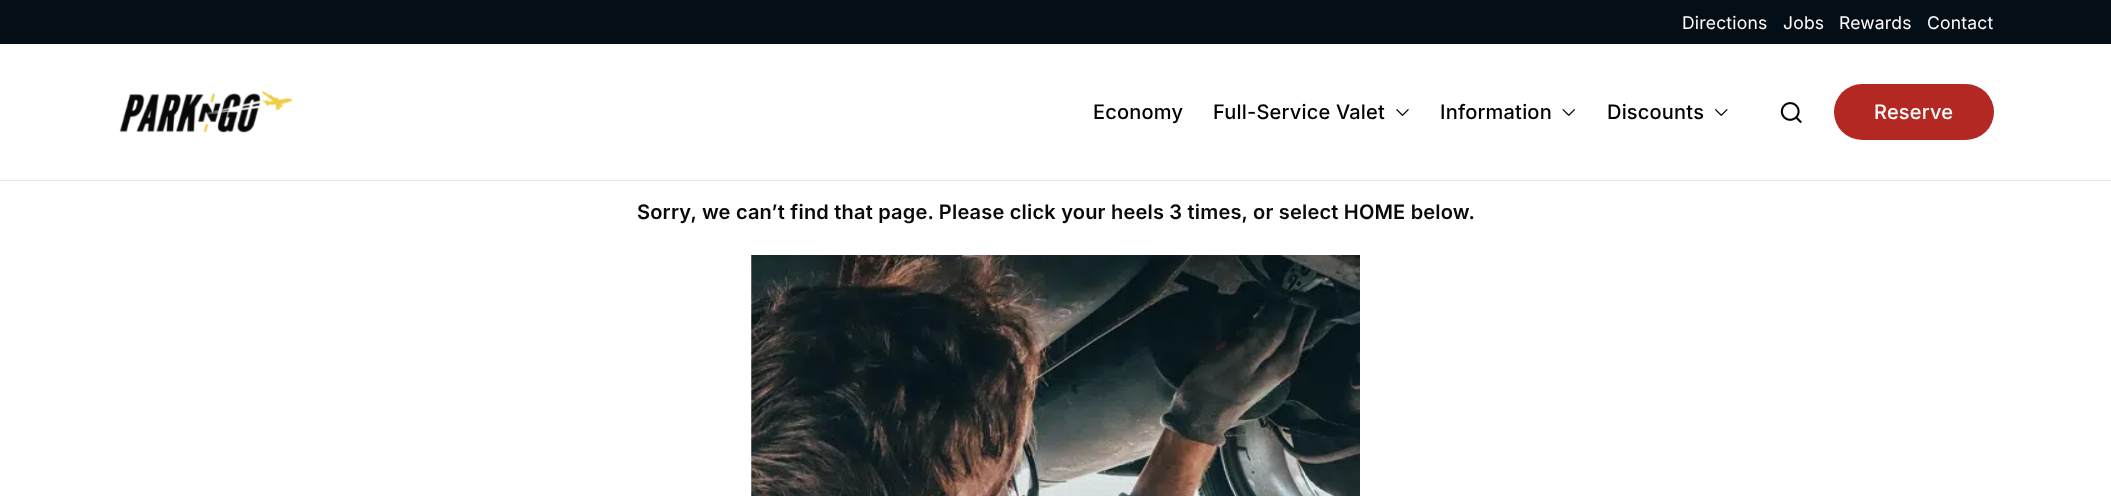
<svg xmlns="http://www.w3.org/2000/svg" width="2111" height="496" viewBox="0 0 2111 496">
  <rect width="100%" height="100%" fill="#ffffff"/>
  <rect x="0" y="180" width="2111" height="1" fill="#e4e4e7"/>
  <rect x="0" y="0" width="2111" height="44" fill="#040e16"/>
  <text x="1682" y="29" font-family="Inter" font-size="17.5" letter-spacing="0.2" fill="#ffffff">Directions</text>
  <text x="1783" y="29" font-family="Inter" font-size="17.5" letter-spacing="0.2" fill="#ffffff">Jobs</text>
  <text x="1839" y="29" font-family="Inter" font-size="17.5" letter-spacing="0.2" fill="#ffffff">Rewards</text>
  <text x="1927" y="29" font-family="Inter" font-size="17.5" letter-spacing="0.2" fill="#ffffff">Contact</text>
  <image x="119" y="90" width="174" height="43" href="img1.png"/>
  <text x="1093" y="119" font-family="Inter" font-size="20" font-weight="500" letter-spacing="0.2" fill="#000000">Economy</text>
  <text x="1213" y="119" font-family="Inter" font-size="20" font-weight="500" letter-spacing="0.2" fill="#000000">Full-Service Valet</text>
  <image x="1396" y="109" width="13" height="7" href="img2.png"/>
  <text x="1440" y="119" font-family="Inter" font-size="20" font-weight="500" letter-spacing="0.2" fill="#000000">Information</text>
  <image x="1562" y="109" width="13" height="7" href="img3.png"/>
  <text x="1607" y="119" font-family="Inter" font-size="20" font-weight="500" letter-spacing="0.2" fill="#000000">Discounts</text>
  <image x="1715" y="109" width="13" height="7" href="img4.png"/>
  <image x="1780" y="102" width="22" height="21" href="img5.png"/>
  <rect x="1834" y="84" width="160" height="56" rx="28" fill="#b42823"/>
  <text x="1874" y="119" font-family="Inter" font-size="20" font-weight="500" letter-spacing="0.2" fill="#ffffff">Reserve</text>
  <text x="637" y="219" font-family="Inter" font-size="20" font-weight="600" letter-spacing="0.2" fill="#0a0909">Sorry, we can’t find that page. Please click your heels 3 times, or select HOME below.</text>
  <image x="751" y="255" width="609" height="241" href="img6.png"/>
</svg>
